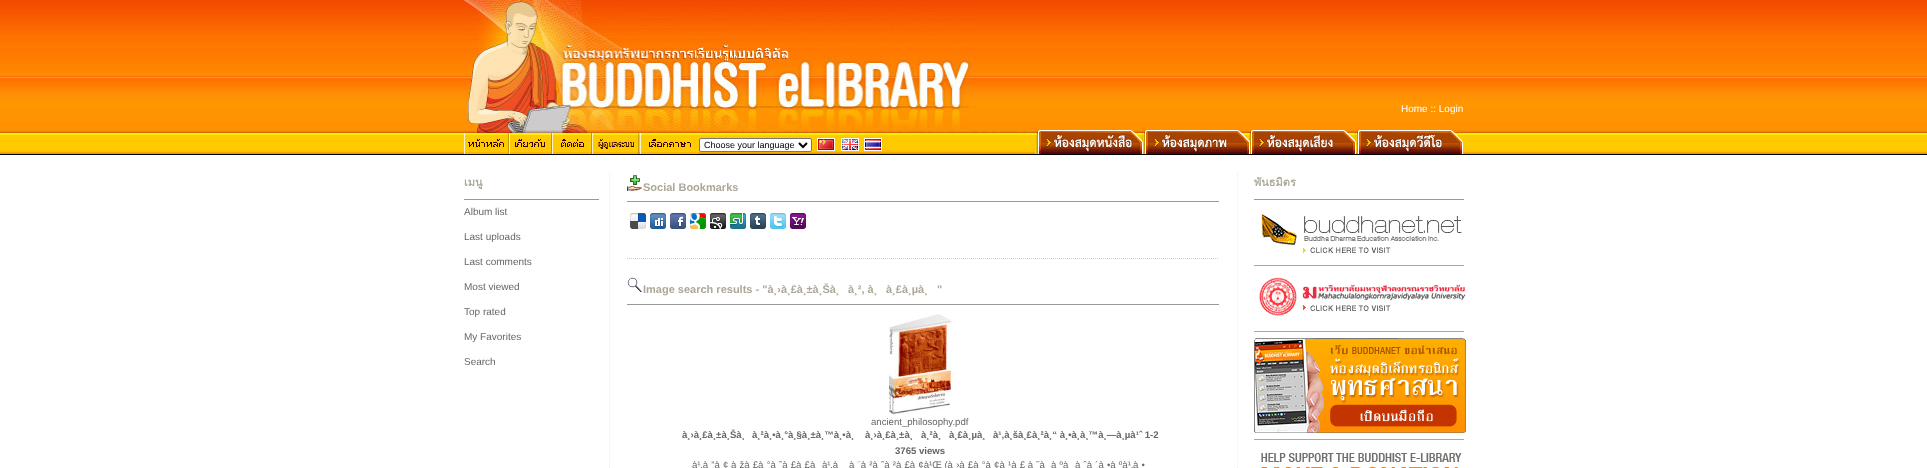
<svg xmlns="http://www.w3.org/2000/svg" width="1927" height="468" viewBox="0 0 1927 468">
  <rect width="100%" height="100%" fill="#ffffff"/>
  <image x="0" y="0" width="464" height="130" href="img1.png"/>
  <image x="975" y="0" width="489" height="130" href="img2.png"/>
  <image x="464" y="0" width="511" height="130" href="img3.png"/>
  <text x="1401" y="112" font-family="Liberation Sans" font-size="10" fill="#ffffff">Home :: Login</text>
  <image x="1464" y="0" width="463" height="130" href="img4.png"/>
  <image x="0" y="130" width="464" height="24" href="img5.png"/>
  <image x="639" y="130" width="825" height="24" href="img6.png"/>
  <image x="464" y="130" width="184" height="6" href="img7.png"/>
  <image x="464" y="133" width="45" height="21" href="img8.png"/>
  <image x="509" y="133" width="43" height="21" href="img9.png"/>
  <image x="552" y="133" width="40" height="21" href="img10.png"/>
  <image x="592" y="133" width="47" height="21" href="img11.png"/>
  <image x="640" y="133" width="59" height="21" href="img12.png"/>
  <image x="699" y="130" width="336" height="3" href="img13.png"/>
  <rect x="817.5" y="138.5" width="17" height="12" fill="none" stroke="#ffffff"/>
  <rect x="841.5" y="138.5" width="17" height="12" fill="none" stroke="#ffffff"/>
  <rect x="864.5" y="138.5" width="17" height="12" fill="none" stroke="#ffffff"/>
  <rect x="699.5" y="138.5" width="112" height="13" rx="1.5" fill="#ffffff" stroke="#767676"/>
  <path d="M799 143L803 147L807 143" fill="none" stroke="#000000" stroke-width="2"/>
  <text x="704" y="148" font-family="Liberation Sans" font-size="9" fill="#000000">Choose your language</text>
  <image x="818" y="139" width="16" height="11" href="img14.png"/>
  <image x="842" y="139" width="16" height="11" href="img15.png"/>
  <image x="865" y="139" width="16" height="11" href="img16.png"/>
  <image x="1035" y="130" width="108" height="24" href="img17.png"/>
  <image x="1144" y="130" width="106" height="24" href="img18.png"/>
  <image x="1250" y="130" width="106" height="24" href="img19.png"/>
  <image x="1357" y="130" width="106" height="24" href="img20.png"/>
  <image x="1464" y="130" width="463" height="24" href="img21.png"/>
  <rect x="0" y="154" width="1927" height="1" fill="#000000"/>
  <rect x="464" y="199" width="135" height="1" fill="#999999"/>
  <text x="464" y="186" font-family="Loma" font-size="11" font-weight="bold" fill="#aca899">เมนู</text>
  <text x="464" y="215" font-family="Liberation Sans" font-size="10" fill="#666666">Album list</text>
  <text x="464" y="240" font-family="Liberation Sans" font-size="10" fill="#666666">Last uploads</text>
  <text x="464" y="265" font-family="Liberation Sans" font-size="10" fill="#666666">Last comments</text>
  <text x="464" y="290" font-family="Liberation Sans" font-size="10" fill="#666666">Most viewed</text>
  <text x="464" y="315" font-family="Liberation Sans" font-size="10" fill="#666666">Top rated</text>
  <text x="464" y="340" font-family="Liberation Sans" font-size="10" fill="#666666">My Favorites</text>
  <text x="464" y="365" font-family="Liberation Sans" font-size="10" fill="#666666">Search</text>
  <path d="M1237.5 173V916" fill="none" stroke="#eeeeee" stroke-dasharray="1 1"/>
  <path d="M609.5 173V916" fill="none" stroke="#eeeeee" stroke-dasharray="1 1"/>
  <rect x="627" y="201" width="592" height="1" fill="#999999"/>
  <image x="627" y="175" width="15" height="16" href="img22.png"/>
  <text x="643" y="191" font-family="Liberation Sans" font-size="11" font-weight="bold" fill="#aca899">Social Bookmarks</text>
  <path d="M627 258.5H1219" fill="none" stroke="#cccccc" stroke-dasharray="1 1"/>
  <image x="630" y="213" width="16" height="16" href="img23.png"/>
  <image x="650" y="213" width="16" height="16" href="img24.png"/>
  <image x="670" y="213" width="16" height="16" href="img25.png"/>
  <image x="690" y="213" width="16" height="16" href="img26.png"/>
  <image x="710" y="213" width="16" height="16" href="img27.png"/>
  <image x="730" y="213" width="16" height="16" href="img28.png"/>
  <image x="750" y="213" width="16" height="16" href="img29.png"/>
  <image x="770" y="213" width="16" height="16" href="img30.png"/>
  <image x="790" y="213" width="16" height="16" href="img31.png"/>
  <rect x="627" y="304" width="592" height="1" fill="#999999"/>
  <image x="627" y="277" width="16" height="15" href="img32.png"/>
  <text x="643" y="293" font-family="Liberation Sans" font-size="11" font-weight="bold" fill="#aca899">Image search results - "à¸›à¸£à¸±à¸Šà¸</text>
  <text x="848" y="293" font-family="Liberation Sans" font-size="11" font-weight="bold" fill="#aca899">à¸², à¸</text>
  <text x="886" y="293" font-family="Liberation Sans" font-size="11" font-weight="bold" fill="#aca899">à¸£à¸µà¸</text>
  <text x="937" y="293" font-family="Liberation Sans" font-size="11" font-weight="bold" fill="#aca899">"</text>
  <image x="889" y="314" width="63" height="100" href="img33.png"/>
  <text x="871" y="425" font-family="Liberation Sans" font-size="9.6" fill="#666666">ancient_philosophy.pdf</text>
  <text x="682" y="438" font-family="Liberation Sans" font-size="9.6" font-weight="bold" fill="#666666">à¸›à¸£à¸±à¸Šà¸</text>
  <text x="752" y="438" font-family="Liberation Sans" font-size="9.6" font-weight="bold" fill="#666666">à¸²à¸•à¸°à¸§à¸±à¸™à¸•à¸</text>
  <text x="865" y="438" font-family="Liberation Sans" font-size="9.6" font-weight="bold" fill="#666666">à¸›à¸£à¸±à¸</text>
  <text x="921" y="438" font-family="Liberation Sans" font-size="9.6" font-weight="bold" fill="#666666">à¸²à¸</text>
  <text x="949" y="438" font-family="Liberation Sans" font-size="9.6" font-weight="bold" fill="#666666">à¸£à¸µà¸</text>
  <text x="993" y="438" font-family="Liberation Sans" font-size="9.6" font-weight="bold" fill="#666666">à¹‚à¸šà¸£à¸²à¸“ à¸•à¸à¸™à¸—à¸µà¹ˆ 1-2</text>
  <text x="895" y="454" font-family="Liberation Sans" font-size="9.6" font-weight="bold" fill="#666666">3765 views</text>
  <text x="692" y="468" font-family="Liberation Sans" font-size="9.6" fill="#666666">à¹‚à¸”à¸¢ à¸žà¸£à¸°à¸˜à¸£à¸£à</text>
  <text x="822" y="468" font-family="Liberation Sans" font-size="9.6" fill="#666666">à¹‚à</text>
  <text x="849" y="468" font-family="Liberation Sans" font-size="9.6" fill="#666666">à¸¨à¸²à¸ˆà¸²à¸£à¸¢à¹Œ (à¸›à¸£à¸°à¸¢à¸¹à¸£ à¸˜à</text>
  <text x="1051" y="468" font-family="Liberation Sans" font-size="9.6" fill="#666666">à¸ºà</text>
  <text x="1075" y="468" font-family="Liberation Sans" font-size="9.6" fill="#666666">à¸ˆà¸´à¸•à¸ºà¹‚à¸•</text>
  <rect x="1254" y="199" width="210" height="1" fill="#999999"/>
  <text x="1254" y="186" font-family="Loma" font-size="11" font-weight="bold" fill="#aca899">พันธมิตร</text>
  <rect x="1254" y="265" width="210" height="1" fill="#aca899"/>
  <image x="1260" y="214" width="202" height="40" href="img34.png"/>
  <rect x="1254" y="331" width="210" height="1" fill="#aca899"/>
  <image x="1259" y="277" width="207" height="39" href="img35.png"/>
  <rect x="1254" y="439" width="210" height="1" fill="#aca899"/>
  <image x="1254" y="338" width="212" height="95" href="img36.png"/>
  <image x="1261" y="453" width="201" height="15" href="img37.png"/>
</svg>
